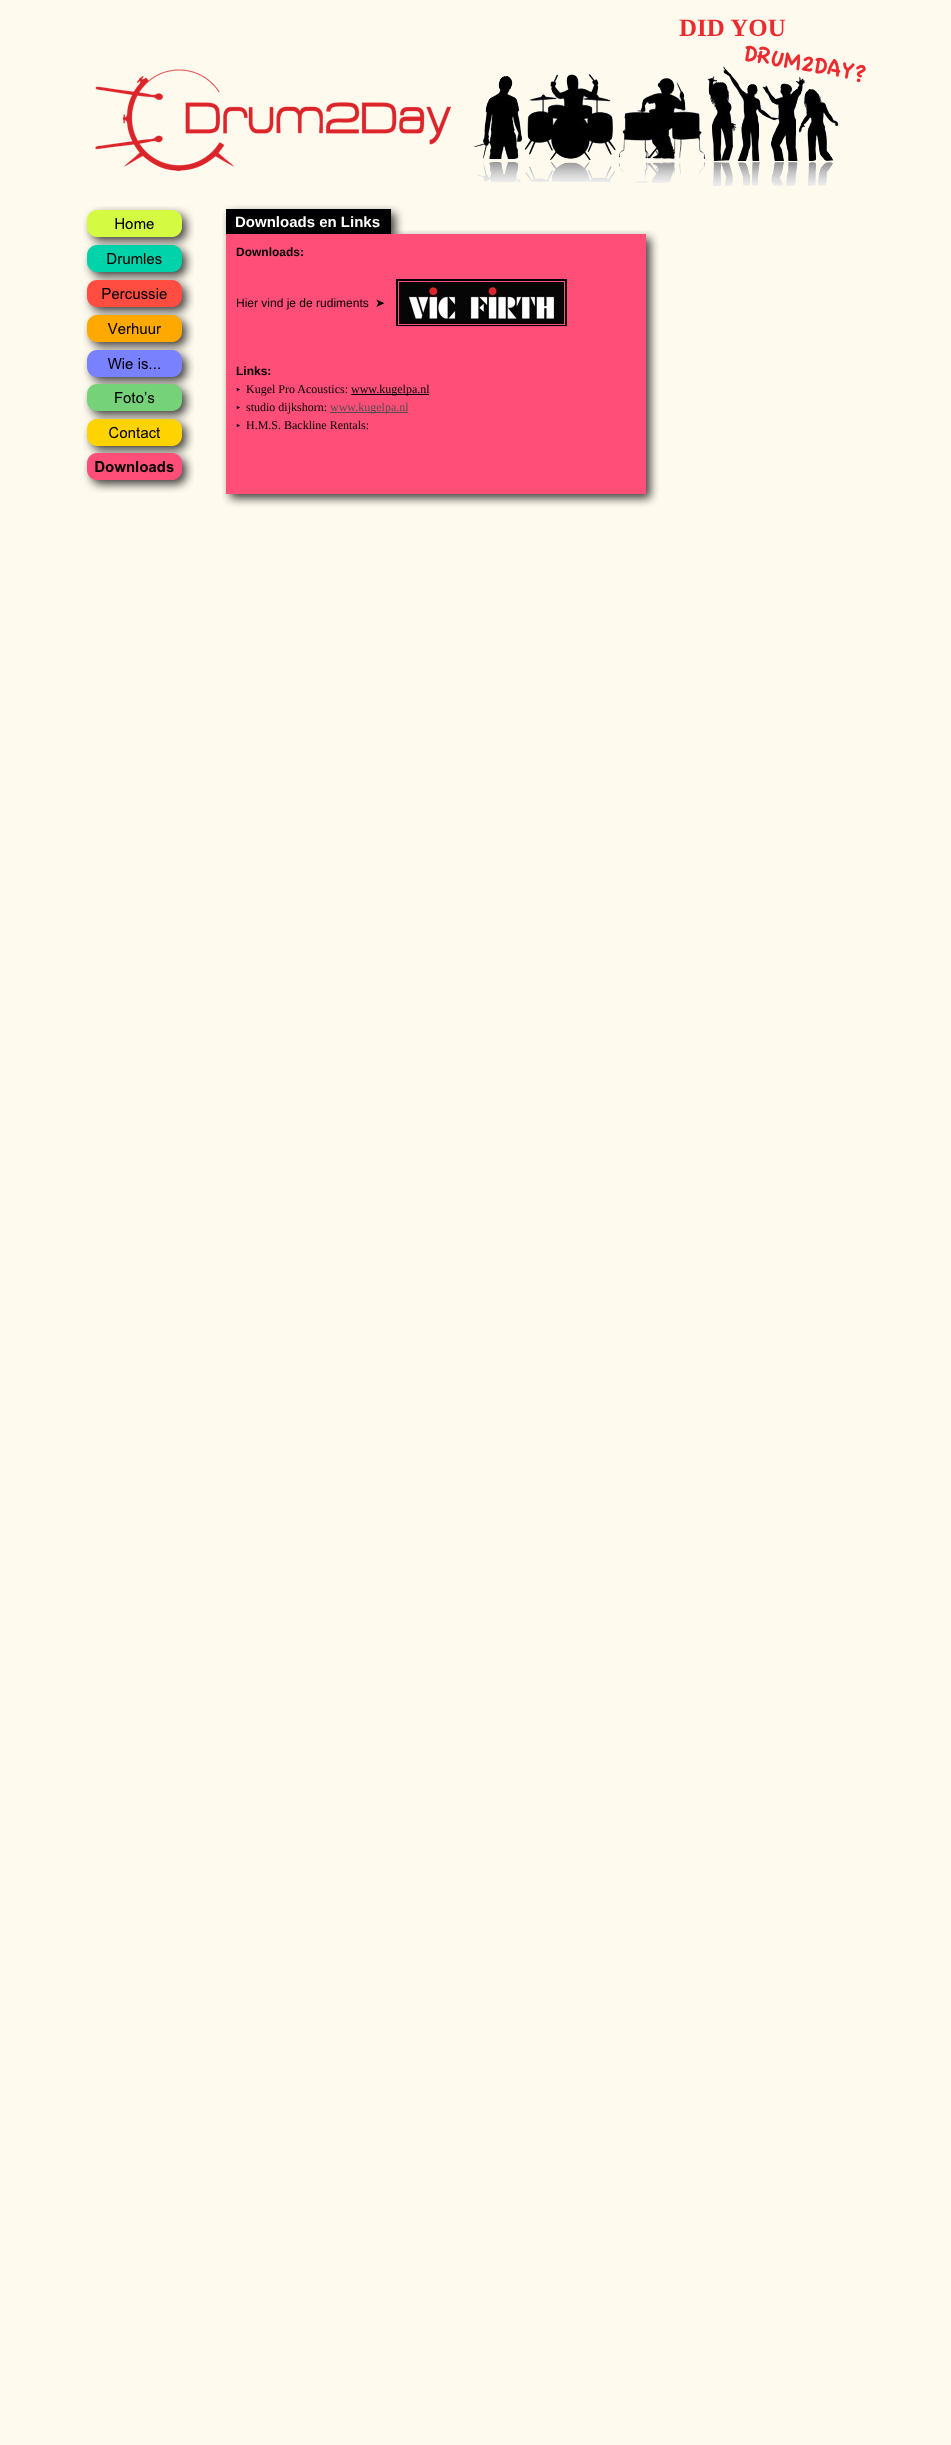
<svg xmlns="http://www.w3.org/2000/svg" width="951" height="2445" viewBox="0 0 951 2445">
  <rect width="100%" height="100%" fill="#fefaee"/>
  <text x="679" y="36" font-family="Liberation Serif" font-size="25" font-weight="bold" fill="#ec2b31">DID YOU</text>
  <image x="745" y="45" width="121" height="38" href="img1.png"/>
  <image x="95" y="69" width="356" height="102" href="img2.png"/>
  <image x="473" y="66" width="366" height="120" href="img3.png"/>
  <image x="83" y="206" width="111" height="43" href="img4.png"/>
  <rect x="226" y="209" width="165" height="25" fill="#000000"/>
  <image x="222" y="205" width="182" height="37" href="img5.png"/>
  <text x="235" y="227" font-family="Liberation Sans" font-size="15" font-weight="bold" fill="#ffffff">Downloads en Links</text>
  <image x="83" y="241" width="111" height="43" href="img6.png"/>
  <rect x="226" y="234" width="420" height="260" fill="#ff4f79"/>
  <image x="222" y="230" width="437" height="277" href="img7.png"/>
  <text x="236" y="256" font-family="Liberation Sans" font-size="12" font-weight="bold" fill="#000000">Downloads:</text>
  <text x="236" y="307" font-family="Liberation Sans" font-size="12" fill="#000000">Hier vind je de rudiments</text>
  <text x="375" y="307" font-family="DejaVu Sans" font-size="12" fill="#000000">➤</text>
  <text x="236" y="375" font-family="Liberation Sans" font-size="12" font-weight="bold" fill="#000000">Links:</text>
  <text x="236" y="394" font-family="Noto Sans" font-size="12" fill="#000000">‣</text>
  <text x="246" y="393" font-family="Liberation Serif" font-size="12" fill="#000000">Kugel Pro Acoustics:</text>
  <rect x="351" y="394" width="78" height="1" fill="#000000"/>
  <text x="351" y="393" font-family="Liberation Serif" font-size="12" fill="#000000">www.kugelpa.nl</text>
  <text x="236" y="412" font-family="Noto Sans" font-size="12" fill="#000000">‣</text>
  <text x="246" y="411" font-family="Liberation Serif" font-size="12" fill="#000000">studio dijkshorn:</text>
  <rect x="330" y="412" width="78" height="1" fill="#584d4d"/>
  <text x="330" y="411" font-family="Liberation Serif" font-size="12" fill="#584d4d">www.kugelpa.nl</text>
  <text x="236" y="430" font-family="Noto Sans" font-size="12" fill="#000000">‣</text>
  <text x="246" y="429" font-family="Liberation Serif" font-size="12" fill="#000000">H.M.S. Backline Rentals:</text>
  <image x="83" y="276" width="111" height="43" href="img8.png"/>
  <rect x="396" y="279" width="2" height="46" fill="#000000"/>
  <rect x="398" y="279" width="169" height="2" fill="#000000"/>
  <image x="399" y="282" width="165" height="42" href="img9.png"/>
  <rect x="565" y="281" width="2" height="44" fill="#000000"/>
  <image x="396" y="325" width="2" height="2" href="img10.png"/>
  <image x="398" y="325" width="167" height="2" href="img11.png"/>
  <image x="565" y="325" width="2" height="2" href="img10.png"/>
  <image x="83" y="311" width="111" height="43" href="img12.png"/>
  <image x="83" y="346" width="111" height="42" href="img13.png"/>
  <image x="83" y="380" width="111" height="43" href="img14.png"/>
  <image x="83" y="415" width="111" height="42" href="img15.png"/>
  <image x="83" y="449" width="111" height="44" href="img16.png"/>
</svg>
